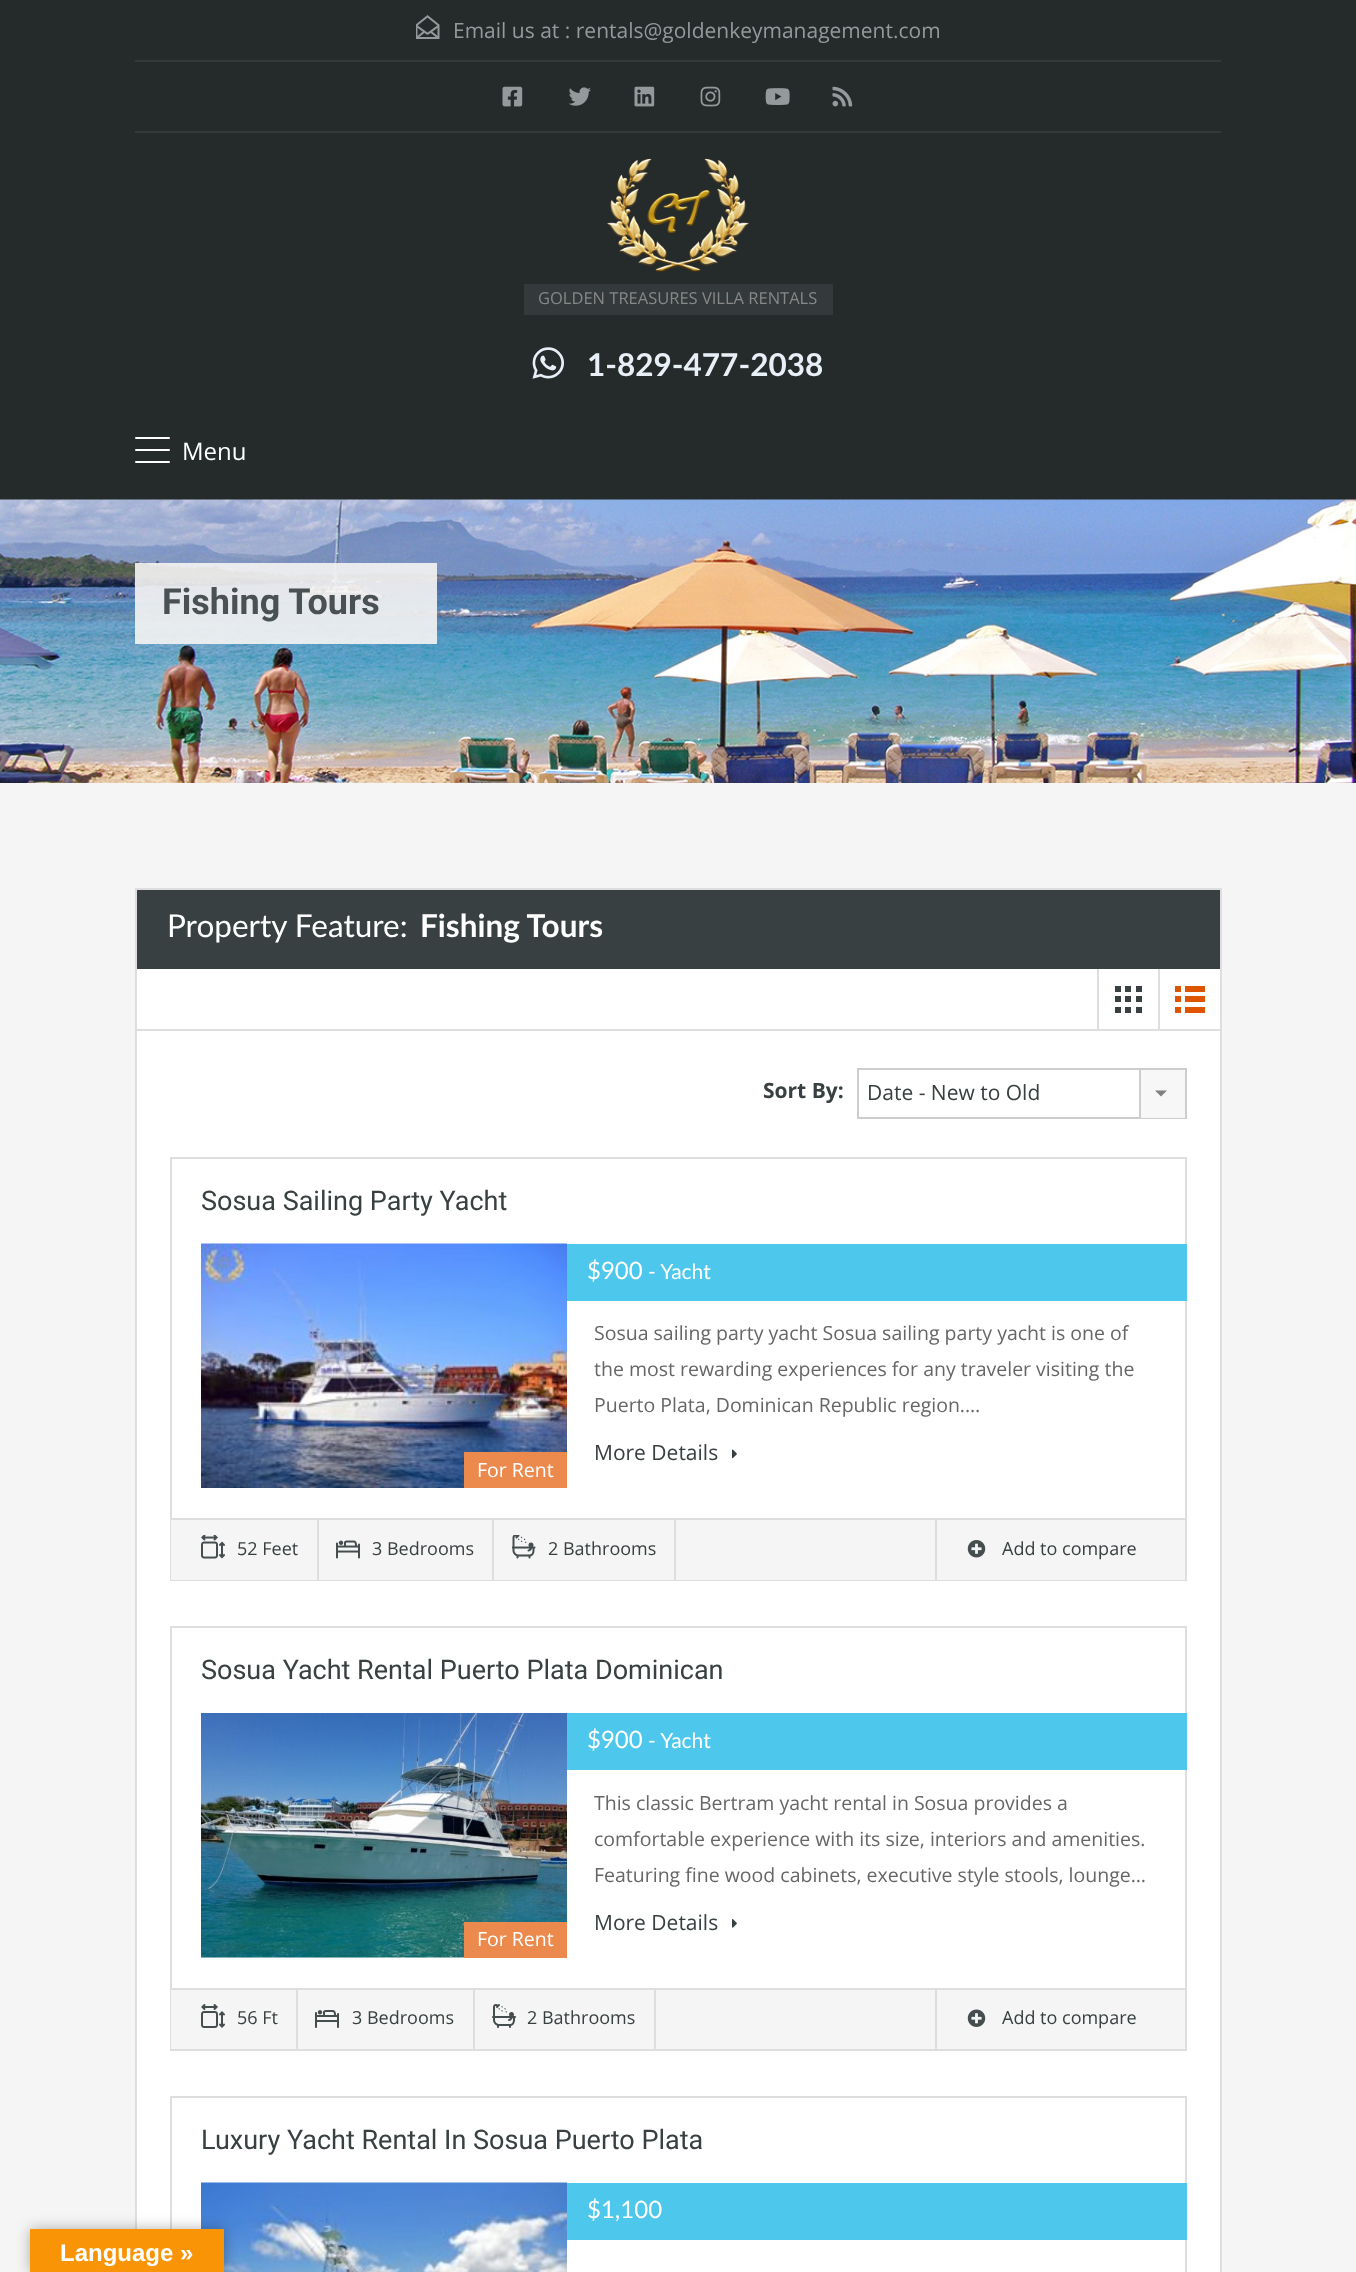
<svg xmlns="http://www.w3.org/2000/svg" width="1356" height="2272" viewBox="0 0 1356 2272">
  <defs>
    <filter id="blur1" x="-50%" y="-200%" width="200%" height="500%"><feGaussianBlur stdDeviation="7"/></filter>
  </defs>
  <rect width="100%" height="100%" fill="#f5f5f5"/>
  <rect x="0" y="0" width="1356" height="500" fill="#252a2b"/>
  <rect x="135" y="131" width="1086" height="2" fill="#343a3b"/>
  <image x="416" y="15" width="24" height="24" href="img1.png"/>
  <text x="453" y="38" font-family="Open Sans" font-size="21" fill="#929a9b">Email us at : rentals@goldenkeymanagement.com</text>
  <rect x="135" y="60" width="1086" height="2" fill="#343a3b"/>
  <image x="502" y="86" width="21" height="21" href="img2.png"/>
  <image x="568" y="87" width="23" height="19" href="img3.png"/>
  <image x="634" y="86" width="21" height="21" href="img4.png"/>
  <image x="700" y="86" width="21" height="21" href="img5.png"/>
  <image x="765" y="88" width="25" height="17" href="img6.png"/>
  <image x="832" y="86" width="21" height="21" href="img7.png"/>
  <image x="607" y="158" width="142" height="115" href="img8.png"/>
  <rect x="524" y="284" width="309" height="31" fill="#343a3b"/>
  <text x="538" y="304" font-family="Open Sans" font-size="16.5" fill="#888888">GOLDEN TREASURES VILLA RENTALS</text>
  <image x="532" y="347" width="32" height="32" href="img9.png"/>
  <text x="587" y="376" font-family="Lato" font-size="31.5" font-weight="bold" fill="#e7eff7">1-829-477-2038</text>
  <rect x="135" y="449" width="35" height="2" rx="1" fill="#ffffff"/>
  <rect x="135" y="437" width="35" height="2" rx="1" fill="#ffffff"/>
  <rect x="135" y="461" width="35" height="2" rx="1" fill="#ffffff"/>
  <text x="182" y="460" font-family="Open Sans" font-size="24" fill="#ffffff">Menu</text>
  <image x="0" y="499" width="1356" height="284" href="img10.png"/>
  <rect x="135" y="563" width="302" height="81" fill="#f5f4f3" fill-opacity="0.9"/>
  <text x="162" y="614" font-family="Roboto" font-size="36" font-weight="bold" fill="#4a5152">Fishing Tours</text>
  <rect x="1220" y="888" width="2" height="1384" fill="#dedede"/>
  <rect x="135" y="888" width="2" height="1341" fill="#dedede"/>
  <rect x="137" y="969" width="1083" height="1303" fill="#ffffff"/>
  <rect x="137" y="888" width="1083" height="2" fill="#dedede"/>
  <rect x="137" y="890" width="1083" height="79" fill="#394041"/>
  <text x="167" y="937" font-family="Lato" font-size="31.5" fill="#ffffff">Property Feature:</text>
  <text x="420" y="937" font-family="Lato" font-size="31.5" font-weight="bold" fill="#ffffff">Fishing Tours</text>
  <rect x="137" y="1029" width="1083" height="2" fill="#dedede"/>
  <rect x="1097" y="969" width="2" height="60" fill="#dedede"/>
  <image x="1115" y="986" width="27" height="27" href="img11.png"/>
  <rect x="1158" y="969" width="2" height="60" fill="#dedede"/>
  <rect x="1175" y="986" width="6" height="6" fill="#df5400"/>
  <rect x="1185" y="986" width="20" height="6" fill="#df5400"/>
  <rect x="1175" y="996" width="6" height="6" fill="#df5400"/>
  <rect x="1185" y="996" width="20" height="6" fill="#df5400"/>
  <rect x="1175" y="1007" width="6" height="6" fill="#df5400"/>
  <rect x="1185" y="1007" width="20" height="6" fill="#df5400"/>
  <text x="763" y="1098" font-family="Open Sans" font-size="21" font-weight="bold" fill="#394041">Sort By:</text>
  <rect x="858" y="1069" width="328" height="49" fill="none" stroke="#cdcdcd" stroke-width="2"/>
  <text x="867" y="1100" font-family="Open Sans" font-size="21" fill="#394041">Date - New to Old</text>
  <rect x="1141" y="1070" width="44" height="48" fill="#f7f7f7"/>
  <rect x="1139" y="1070" width="2" height="48" fill="#cdcdcd"/>
  <path d="M1155 1090.5H1167L1161 1096.5Z" fill="#808080"/>
  <rect x="171" y="1158" width="1015" height="422" fill="none" stroke="#dedede" stroke-width="2"/>
  <text x="201" y="1210" font-family="Roboto" font-size="27" fill="#394041">Sosua Sailing Party Yacht</text>
  <rect x="567" y="1244" width="620" height="57" fill="#4dc7ec"/>
  <text x="587" y="1279" font-family="Lato" font-size="24" fill="#ffffff">$900</text>
  <text x="648" y="1279" font-family="Lato" font-size="21" fill="#ffffff">- Yacht</text>
  <text x="594" y="1340" font-family="Open Sans" font-size="19.5" fill="#666666">Sosua sailing party yacht Sosua sailing party yacht is one of</text>
  <text x="594" y="1376" font-family="Open Sans" font-size="19.5" fill="#666666">the most rewarding experiences for any traveler visiting the</text>
  <text x="594" y="1412" font-family="Open Sans" font-size="19.5" fill="#666666">Puerto Plata, Dominican Republic region.…</text>
  <text x="594" y="1460" font-family="Open Sans" font-size="21" fill="#394041">More Details</text>
  <image x="732" y="1449" width="5" height="10" href="img12.png"/>
  <image x="201" y="1243" width="366" height="245" href="img13.png"/>
  <rect x="464" y="1452" width="103" height="36" fill="#ec894d"/>
  <text x="477" y="1477" font-family="Open Sans" font-size="19.5" fill="#ffffff">For Rent</text>
  <rect x="171" y="1520" width="1014" height="60" fill="#f5f5f5"/>
  <rect x="171" y="1518" width="1014" height="2" fill="#dedede"/>
  <rect x="317" y="1520" width="2" height="60" fill="#dedede"/>
  <image x="201" y="1535" width="24" height="24" href="img14.png"/>
  <text x="237" y="1555" font-family="Open Sans" font-size="18" fill="#394041">52 Feet</text>
  <rect x="492" y="1520" width="2" height="60" fill="#dedede"/>
  <image x="336" y="1540" width="24" height="19" href="img15.png"/>
  <text x="372" y="1555" font-family="Open Sans" font-size="18" fill="#394041">3 Bedrooms</text>
  <rect x="674" y="1520" width="2" height="60" fill="#dedede"/>
  <image x="512" y="1535" width="24" height="24" href="img16.png"/>
  <text x="548" y="1555" font-family="Open Sans" font-size="18" fill="#394041">2 Bathrooms</text>
  <rect x="935" y="1520" width="2" height="60" fill="#dedede"/>
  <image x="967" y="1540" width="19" height="18" href="img17.png"/>
  <text x="1002" y="1555" font-family="Open Sans" font-size="18" fill="#394041">Add to compare</text>
  <rect x="171" y="1627" width="1015" height="423" fill="none" stroke="#dedede" stroke-width="2"/>
  <text x="201" y="1679" font-family="Roboto" font-size="27" fill="#394041">Sosua Yacht Rental Puerto Plata Dominican</text>
  <rect x="567" y="1713" width="620" height="57" fill="#4dc7ec"/>
  <text x="587" y="1748" font-family="Lato" font-size="24" fill="#ffffff">$900</text>
  <text x="648" y="1748" font-family="Lato" font-size="21" fill="#ffffff">- Yacht</text>
  <text x="594" y="1810" font-family="Open Sans" font-size="19.5" fill="#666666">This classic Bertram yacht rental in Sosua provides a</text>
  <text x="594" y="1846" font-family="Open Sans" font-size="19.5" fill="#666666">comfortable experience with its size, interiors and amenities.</text>
  <text x="594" y="1882" font-family="Open Sans" font-size="19.5" fill="#666666">Featuring fine wood cabinets, executive style stools, lounge…</text>
  <text x="594" y="1930" font-family="Open Sans" font-size="21" fill="#394041">More Details</text>
  <image x="732" y="1919" width="5" height="9" href="img18.png"/>
  <image x="201" y="1713" width="366" height="245" href="img19.png"/>
  <rect x="464" y="1922" width="103" height="36" fill="#ec894d"/>
  <text x="477" y="1946" font-family="Open Sans" font-size="19.5" fill="#ffffff">For Rent</text>
  <rect x="171" y="1990" width="1014" height="59" fill="#f5f5f5"/>
  <rect x="171" y="1988" width="1014" height="2" fill="#dedede"/>
  <rect x="296" y="1989" width="2" height="60" fill="#dedede"/>
  <image x="201" y="2004" width="24" height="24" href="img20.png"/>
  <text x="237" y="2024" font-family="Open Sans" font-size="18" fill="#394041">56 Ft</text>
  <rect x="473" y="1989" width="2" height="60" fill="#dedede"/>
  <image x="315" y="2010" width="24" height="18" href="img21.png"/>
  <text x="352" y="2024" font-family="Open Sans" font-size="18" fill="#394041">3 Bedrooms</text>
  <rect x="654" y="1989" width="2" height="60" fill="#dedede"/>
  <image x="492" y="2004" width="24" height="24" href="img22.png"/>
  <text x="527" y="2024" font-family="Open Sans" font-size="18" fill="#394041">2 Bathrooms</text>
  <rect x="935" y="1989" width="2" height="60" fill="#dedede"/>
  <image x="967" y="2009" width="19" height="18" href="img23.png"/>
  <text x="1002" y="2024" font-family="Open Sans" font-size="18" fill="#394041">Add to compare</text>
  <rect x="171" y="2097" width="1015" height="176" fill="none" stroke="#dedede" stroke-width="2"/>
  <text x="201" y="2149" font-family="Roboto" font-size="27" fill="#394041">Luxury Yacht Rental In Sosua Puerto Plata</text>
  <image x="201" y="2182" width="366" height="90" href="img24.png"/>
  <rect x="567" y="2183" width="620" height="57" fill="#4dc7ec"/>
  <text x="587" y="2218" font-family="Lato" font-size="24" fill="#ffffff">$1,100</text>
  <rect x="30" y="2229" width="194" height="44" fill="#000000" fill-opacity="0.3" filter="url(#blur1)"/>
  <rect x="30" y="2229" width="194" height="43" fill="#f89406"/>
  <text x="60" y="2261" font-family="Liberation Sans" font-size="24" font-weight="bold" fill="#ffffff">Language »</text>
</svg>
